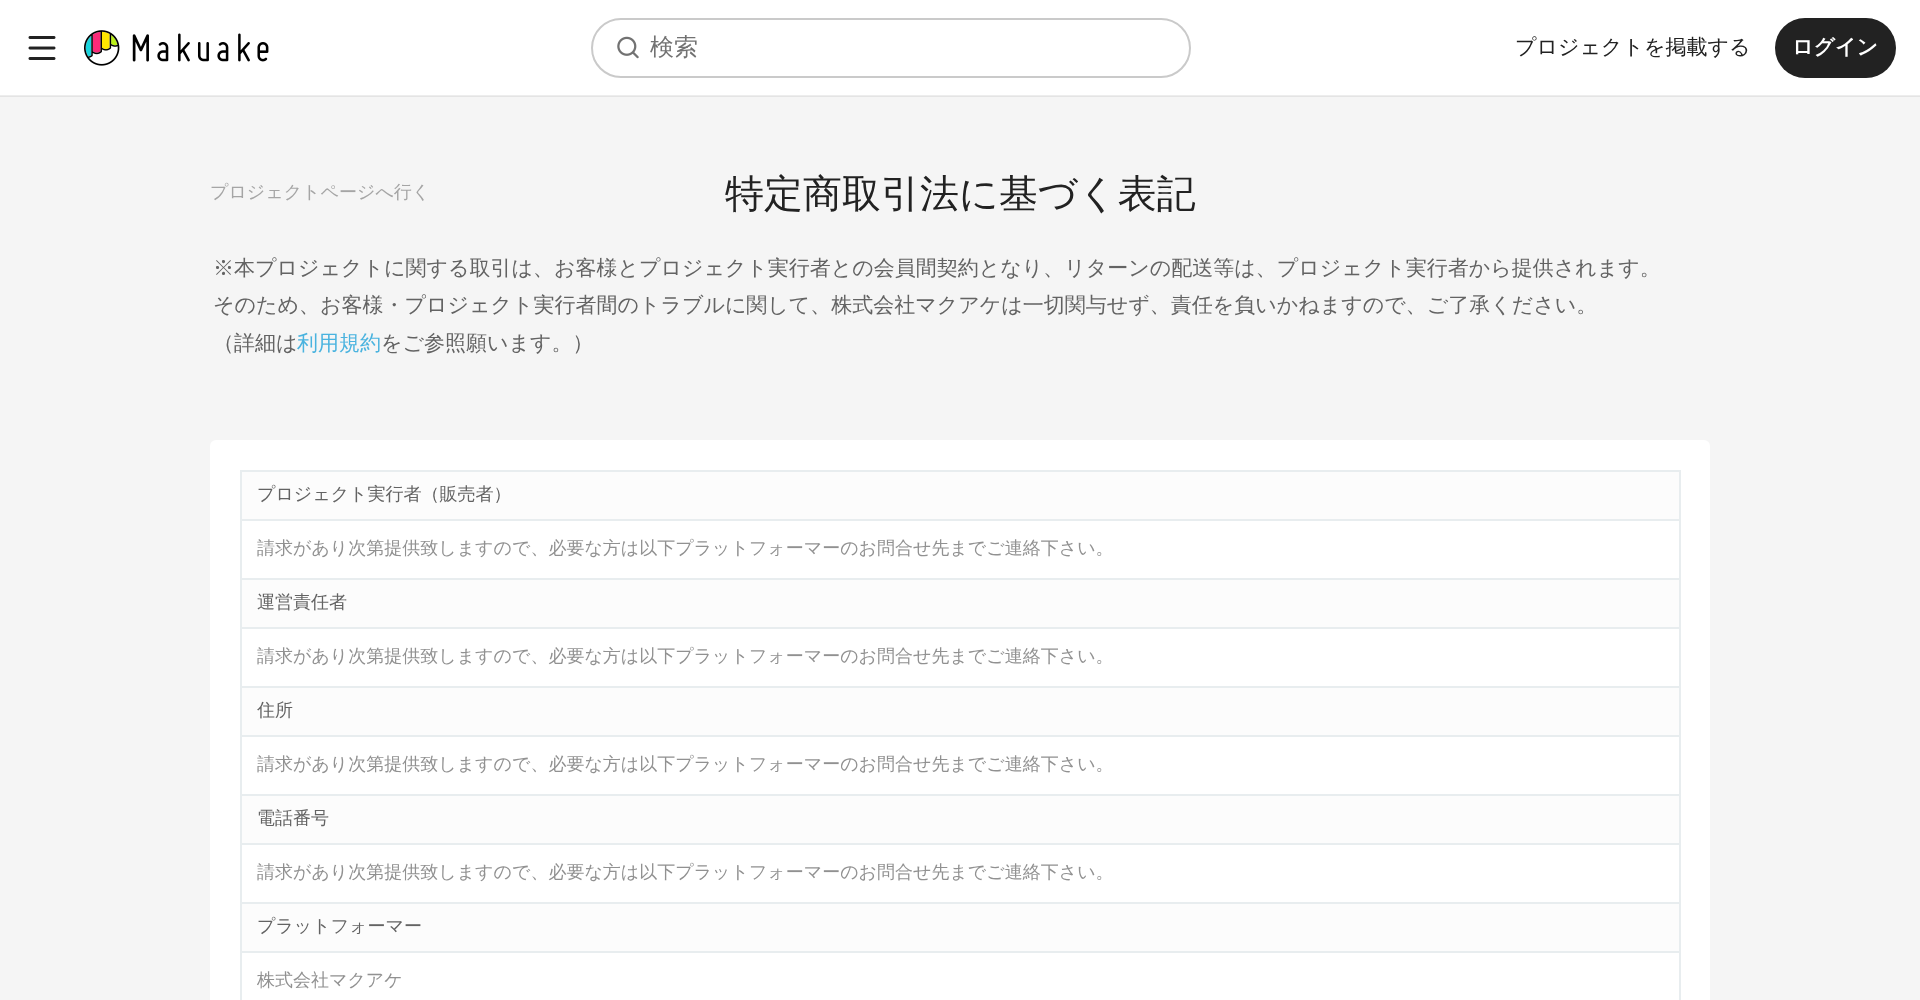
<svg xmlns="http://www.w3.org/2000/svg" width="1920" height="1000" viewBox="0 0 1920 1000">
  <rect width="100%" height="100%" fill="#ffffff"/>
  <rect x="0" y="95" width="1920" height="1" fill="#ededed"/>
  <image x="28" y="36" width="28" height="24" href="img1.png"/>
  <image x="84" y="30" width="185" height="36" href="img2.png"/>
  <rect x="592" y="19" width="598" height="58" rx="29" fill="none" stroke="#cacaca" stroke-width="2"/>
  <image x="617" y="36" width="22" height="23" href="img3.png"/>
  <text x="650" y="55" font-family="WenQuanYi Zen Hei" font-size="24" font-weight="500" fill="#727272">検索</text>
  <text x="1515" y="54" font-family="WenQuanYi Zen Hei" font-size="21" font-weight="500" fill="#222222">プロジェクトを掲載する</text>
  <rect x="1775" y="18" width="121" height="60" rx="30" fill="#222222"/>
  <text x="1792" y="54" font-family="WenQuanYi Zen Hei" font-size="21" font-weight="bold" fill="#ffffff">ログイン</text>
  <rect x="0" y="97" width="1920" height="903" fill="#f5f5f5"/>
  <rect x="0" y="96" width="1920" height="1" fill="#e4e4e4"/>
  <text x="210" y="198" font-family="WenQuanYi Zen Hei" font-size="18" font-weight="500" fill="#a5a5a5">プロジェクトページへ行く</text>
  <text x="725" y="207" font-family="WenQuanYi Zen Hei" font-size="39" font-weight="500" fill="#222222">特定商取引法に基づく表記</text>
  <text x="213" y="275" font-family="WenQuanYi Zen Hei" font-size="21" font-weight="500" fill="#636363">※本プロジェクトに関する取引は、お客様とプロジェクト実行者との会員間契約となり、リターンの配送等は、プロジェクト実行者から提供されます。</text>
  <text x="213" y="312" font-family="WenQuanYi Zen Hei" font-size="21" font-weight="500" fill="#636363">そのため、お客様・プロジェクト実行者間のトラブルに関して、株式会社マクアケは一切関与せず、責任を負いかねますので、ご了承ください。</text>
  <text x="213" y="350" font-family="WenQuanYi Zen Hei" font-size="21" font-weight="500" fill="#636363">（詳細は</text>
  <text x="297" y="350" font-family="WenQuanYi Zen Hei" font-size="21" font-weight="500" fill="#4ab3df">利用規約</text>
  <text x="381" y="350" font-family="WenQuanYi Zen Hei" font-size="21" font-weight="500" fill="#636363">をご参照願います。）</text>
  <rect x="210" y="440" width="1500" height="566" rx="6" fill="#ffffff"/>
  <rect x="242" y="472" width="1437" height="47" fill="#fcfcfc"/>
  <rect x="240" y="470" width="1440" height="2" fill="#e8edef"/>
  <rect x="240" y="519" width="1440" height="2" fill="#e8edef"/>
  <rect x="240" y="578" width="1440" height="2" fill="#e8edef"/>
  <rect x="240" y="627" width="1440" height="2" fill="#e8edef"/>
  <rect x="240" y="686" width="1440" height="2" fill="#e8edef"/>
  <rect x="240" y="735" width="1440" height="2" fill="#e8edef"/>
  <rect x="240" y="794" width="1440" height="2" fill="#e8edef"/>
  <rect x="240" y="843" width="1440" height="2" fill="#e8edef"/>
  <rect x="240" y="902" width="1440" height="2" fill="#e8edef"/>
  <rect x="240" y="951" width="1440" height="2" fill="#e8edef"/>
  <rect x="1679" y="951" width="2" height="49" fill="#e8edef"/>
  <rect x="1679" y="902" width="2" height="51" fill="#e8edef"/>
  <rect x="1679" y="843" width="2" height="60" fill="#e8edef"/>
  <rect x="1679" y="794" width="2" height="51" fill="#e8edef"/>
  <rect x="1679" y="735" width="2" height="60" fill="#e8edef"/>
  <rect x="1679" y="686" width="2" height="51" fill="#e8edef"/>
  <rect x="1679" y="627" width="2" height="60" fill="#e8edef"/>
  <rect x="1679" y="578" width="2" height="51" fill="#e8edef"/>
  <rect x="1679" y="519" width="2" height="60" fill="#e8edef"/>
  <rect x="1679" y="470" width="2" height="51" fill="#e8edef"/>
  <rect x="240" y="951" width="2" height="49" fill="#e8edef"/>
  <rect x="240" y="902" width="2" height="51" fill="#e8edef"/>
  <rect x="240" y="843" width="2" height="60" fill="#e8edef"/>
  <rect x="240" y="794" width="2" height="51" fill="#e8edef"/>
  <rect x="240" y="735" width="2" height="60" fill="#e8edef"/>
  <rect x="240" y="686" width="2" height="51" fill="#e8edef"/>
  <rect x="240" y="627" width="2" height="60" fill="#e8edef"/>
  <rect x="240" y="578" width="2" height="51" fill="#e8edef"/>
  <rect x="240" y="519" width="2" height="60" fill="#e8edef"/>
  <rect x="240" y="470" width="2" height="51" fill="#e8edef"/>
  <text x="257" y="500" font-family="WenQuanYi Zen Hei" font-size="18" font-weight="500" fill="#636363">プロジェクト実行者（販売者）</text>
  <text x="257" y="554" font-family="WenQuanYi Zen Hei" font-size="18" font-weight="500" fill="#919191">請求があり次第提供致しますので、必要な方は以下プラットフォーマーのお問合せ先までご連絡下さい。</text>
  <rect x="242" y="580" width="1437" height="47" fill="#fcfcfc"/>
  <text x="257" y="608" font-family="WenQuanYi Zen Hei" font-size="18" font-weight="500" fill="#636363">運営責任者</text>
  <text x="257" y="662" font-family="WenQuanYi Zen Hei" font-size="18" font-weight="500" fill="#919191">請求があり次第提供致しますので、必要な方は以下プラットフォーマーのお問合せ先までご連絡下さい。</text>
  <rect x="242" y="688" width="1437" height="47" fill="#fcfcfc"/>
  <text x="257" y="716" font-family="WenQuanYi Zen Hei" font-size="18" font-weight="500" fill="#636363">住所</text>
  <text x="257" y="770" font-family="WenQuanYi Zen Hei" font-size="18" font-weight="500" fill="#919191">請求があり次第提供致しますので、必要な方は以下プラットフォーマーのお問合せ先までご連絡下さい。</text>
  <rect x="242" y="796" width="1437" height="47" fill="#fcfcfc"/>
  <text x="257" y="824" font-family="WenQuanYi Zen Hei" font-size="18" font-weight="500" fill="#636363">電話番号</text>
  <text x="257" y="878" font-family="WenQuanYi Zen Hei" font-size="18" font-weight="500" fill="#919191">請求があり次第提供致しますので、必要な方は以下プラットフォーマーのお問合せ先までご連絡下さい。</text>
  <rect x="242" y="904" width="1437" height="47" fill="#fcfcfc"/>
  <text x="257" y="932" font-family="WenQuanYi Zen Hei" font-size="18" font-weight="500" fill="#636363">プラットフォーマー</text>
  <text x="257" y="986" font-family="WenQuanYi Zen Hei" font-size="18" font-weight="500" fill="#919191">株式会社マクアケ</text>
</svg>
